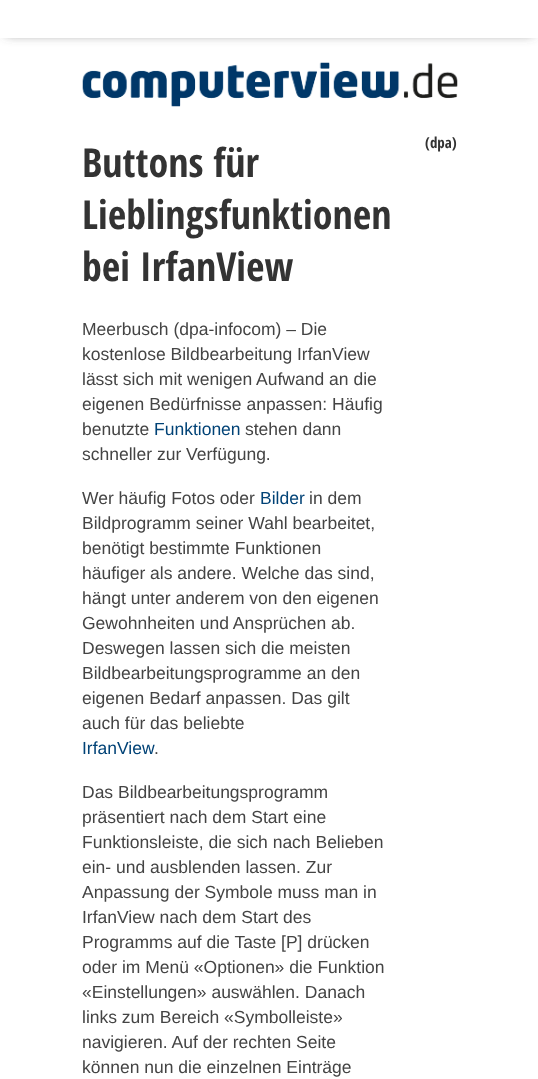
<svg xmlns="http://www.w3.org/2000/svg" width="538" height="1079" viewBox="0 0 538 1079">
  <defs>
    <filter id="blur1" x="-50%" y="-200%" width="200%" height="500%"><feGaussianBlur stdDeviation="6"/></filter>
  </defs>
  <rect width="100%" height="100%" fill="#ffffff"/>
  <rect x="6" y="8" width="527" height="25" fill="#555555" filter="url(#blur1)"/>
  <rect x="0" y="0" width="538" height="38" fill="#ffffff"/>
  <image x="82" y="62" width="376" height="45" href="img1.png"/>
  <text x="425" y="148" font-family="Open Sans Condensed" font-size="15" font-weight="bold" fill="#333333">(dpa)</text>
  <text x="82" y="177" font-family="Open Sans Condensed" font-size="40" font-weight="bold" fill="#333333">Buttons für</text>
  <text x="82" y="229" font-family="Open Sans Condensed" font-size="40" font-weight="bold" fill="#333333">Lieblingsfunktionen</text>
  <text x="82" y="281" font-family="Open Sans Condensed" font-size="40" font-weight="bold" fill="#333333">bei IrfanView</text>
  <text x="82" y="335" font-family="Liberation Sans" font-size="17.5" fill="#444444">Meerbusch (dpa-infocom) – Die</text>
  <text x="82" y="360" font-family="Liberation Sans" font-size="17.5" fill="#444444">kostenlose Bildbearbeitung IrfanView</text>
  <text x="82" y="385" font-family="Liberation Sans" font-size="17.5" fill="#444444">lässt sich mit wenigen Aufwand an die</text>
  <text x="82" y="410" font-family="Liberation Sans" font-size="17.5" fill="#444444">eigenen Bedürfnisse anpassen: Häufig</text>
  <text x="82" y="435" font-family="Liberation Sans" font-size="17.5" fill="#444444">benutzte</text>
  <text x="154" y="435" font-family="Liberation Sans" font-size="17.5" fill="#004276">Funktionen</text>
  <text x="245" y="435" font-family="Liberation Sans" font-size="17.5" fill="#444444">stehen dann</text>
  <text x="82" y="460" font-family="Liberation Sans" font-size="17.5" fill="#444444">schneller zur Verfügung.</text>
  <text x="82" y="504" font-family="Liberation Sans" font-size="17.5" fill="#444444">Wer häufig Fotos oder</text>
  <text x="260" y="504" font-family="Liberation Sans" font-size="17.5" fill="#004276">Bilder</text>
  <text x="309" y="504" font-family="Liberation Sans" font-size="17.5" fill="#444444">in dem</text>
  <text x="82" y="529" font-family="Liberation Sans" font-size="17.5" fill="#444444">Bildprogramm seiner Wahl bearbeitet,</text>
  <text x="82" y="554" font-family="Liberation Sans" font-size="17.5" fill="#444444">benötigt bestimmte Funktionen</text>
  <text x="82" y="579" font-family="Liberation Sans" font-size="17.5" fill="#444444">häufiger als andere. Welche das sind,</text>
  <text x="82" y="604" font-family="Liberation Sans" font-size="17.5" fill="#444444">hängt unter anderem von den eigenen</text>
  <text x="82" y="629" font-family="Liberation Sans" font-size="17.5" fill="#444444">Gewohnheiten und Ansprüchen ab.</text>
  <text x="82" y="654" font-family="Liberation Sans" font-size="17.5" fill="#444444">Deswegen lassen sich die meisten</text>
  <text x="82" y="679" font-family="Liberation Sans" font-size="17.5" fill="#444444">Bildbearbeitungsprogramme an den</text>
  <text x="82" y="704" font-family="Liberation Sans" font-size="17.5" fill="#444444">eigenen Bedarf anpassen. Das gilt</text>
  <text x="82" y="729" font-family="Liberation Sans" font-size="17.5" fill="#444444">auch für das beliebte</text>
  <text x="82" y="754" font-family="Liberation Sans" font-size="17.5" fill="#004276">IrfanView</text>
  <text x="154" y="754" font-family="Liberation Sans" font-size="17.5" fill="#444444">.</text>
  <text x="82" y="798" font-family="Liberation Sans" font-size="17.5" fill="#444444">Das Bildbearbeitungsprogramm</text>
  <text x="82" y="823" font-family="Liberation Sans" font-size="17.5" fill="#444444">präsentiert nach dem Start eine</text>
  <text x="82" y="848" font-family="Liberation Sans" font-size="17.5" fill="#444444">Funktionsleiste, die sich nach Belieben</text>
  <text x="82" y="873" font-family="Liberation Sans" font-size="17.5" fill="#444444">ein- und ausblenden lassen. Zur</text>
  <text x="82" y="898" font-family="Liberation Sans" font-size="17.5" fill="#444444">Anpassung der Symbole muss man in</text>
  <text x="82" y="923" font-family="Liberation Sans" font-size="17.5" fill="#444444">IrfanView nach dem Start des</text>
  <text x="82" y="948" font-family="Liberation Sans" font-size="17.5" fill="#444444">Programms auf die Taste [P] drücken</text>
  <text x="82" y="973" font-family="Liberation Sans" font-size="17.5" fill="#444444">oder im Menü «Optionen» die Funktion</text>
  <text x="82" y="998" font-family="Liberation Sans" font-size="17.5" fill="#444444">«Einstellungen» auswählen. Danach</text>
  <text x="82" y="1023" font-family="Liberation Sans" font-size="17.5" fill="#444444">links zum Bereich «Symbolleiste»</text>
  <text x="82" y="1048" font-family="Liberation Sans" font-size="17.5" fill="#444444">navigieren. Auf der rechten Seite</text>
  <text x="82" y="1073" font-family="Liberation Sans" font-size="17.5" fill="#444444">können nun die einzelnen Einträge</text>
</svg>
